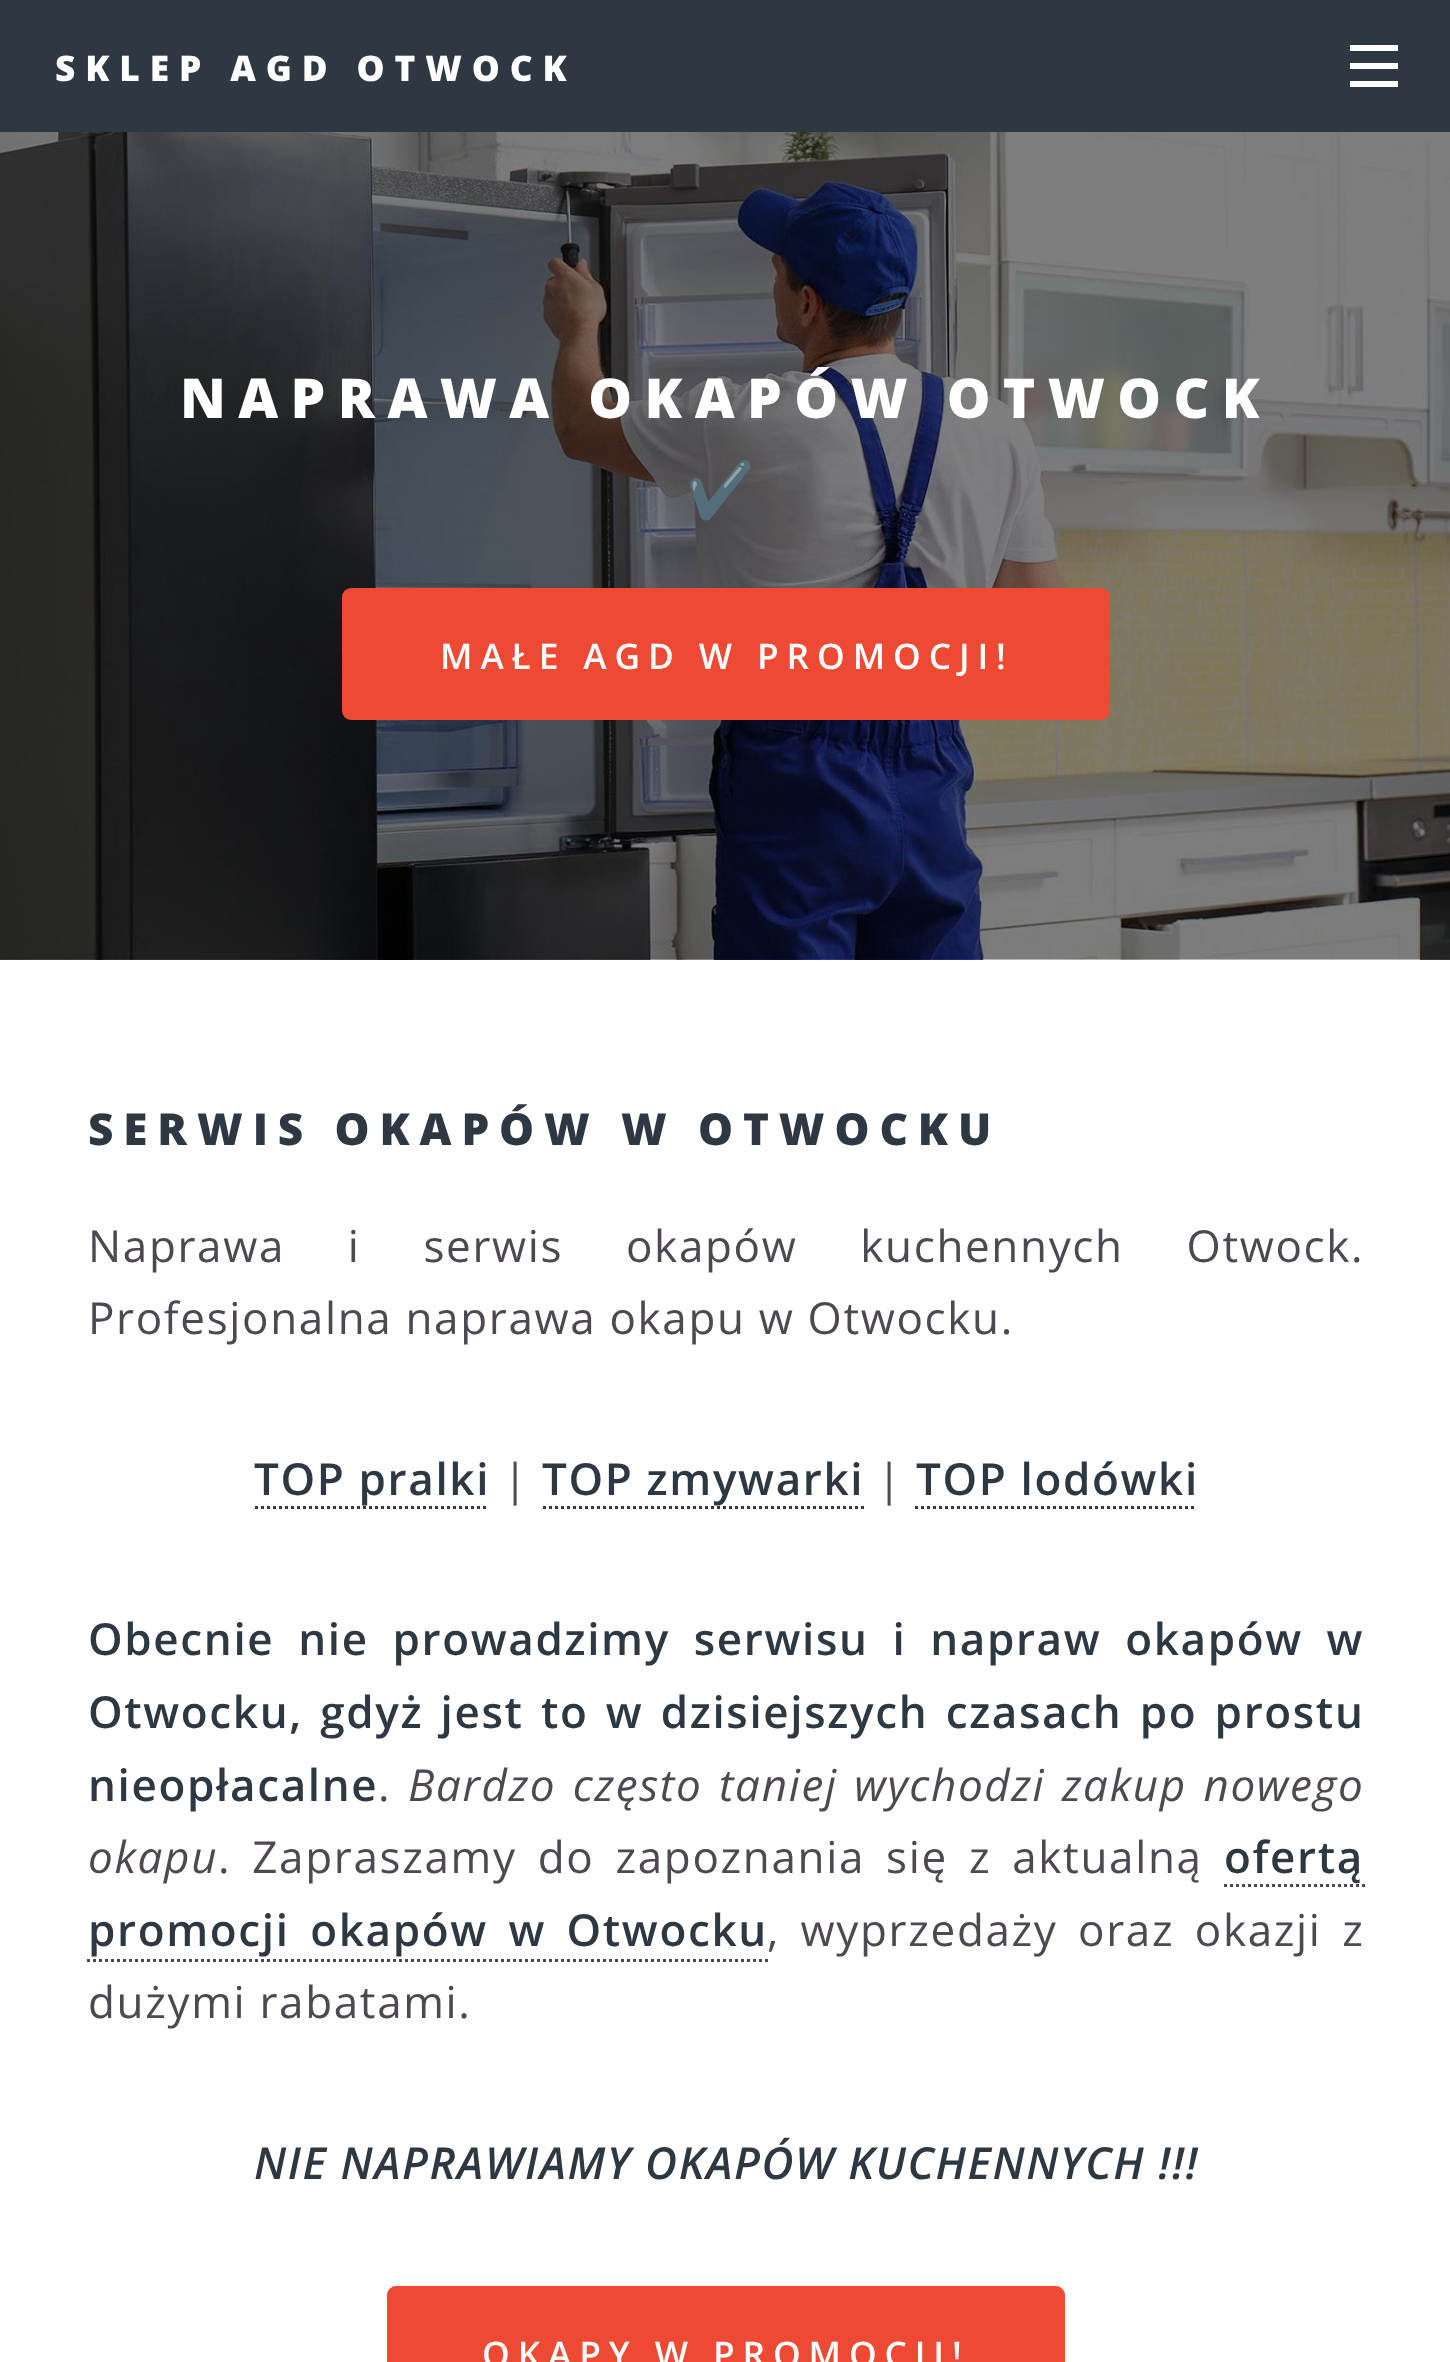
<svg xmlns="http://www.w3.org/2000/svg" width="1450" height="2362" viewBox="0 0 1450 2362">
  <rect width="100%" height="100%" fill="#2e3842"/>
  <text x="55" y="81" font-family="Open Sans" font-size="35.25" font-weight="800" letter-spacing="9.9" fill="#ffffff">SKLEP AGD OTWOCK</text>
  <rect x="1350" y="45" width="48" height="6" fill="#ffffff"/>
  <rect x="1350" y="63" width="48" height="6" fill="#ffffff"/>
  <rect x="1350" y="81" width="48" height="6" fill="#ffffff"/>
  <image x="0" y="132" width="1450" height="828" href="img1.png"/>
  <text x="180" y="418" font-family="Open Sans" font-size="55" font-weight="800" letter-spacing="12.4" fill="#ffffff">NAPRAWA OKAPÓW OTWOCK</text>
  <text x="686" y="509" font-family="Noto Color Emoji" font-size="55" font-weight="bold" letter-spacing="12.4" fill="#ffffff">✔️</text>
  <rect x="342" y="588" width="768" height="132" rx="9" fill="#ed4933"/>
  <text x="440" y="669" font-family="Open Sans" font-size="35.25" font-weight="600" letter-spacing="7.9" fill="#ffffff">MAŁE AGD W PROMOCJI!</text>
  <rect x="0" y="960" width="1450" height="1402" fill="#ffffff"/>
  <text x="88" y="1145" font-family="Open Sans" font-size="44" font-weight="800" letter-spacing="9.9" fill="#2e3842">SERWIS OKAPÓW W OTWOCKU</text>
  <text x="88" y="1262" word-spacing="49.75" font-family="Open Sans" font-size="44" letter-spacing="1.65" fill="#4e4852">Naprawa i serwis okapów kuchennych Otwock.</text>
  <text x="88" y="1334" font-family="Open Sans" font-size="44" letter-spacing="1.65" fill="#4e4852">Profesjonalna naprawa okapu w Otwocku.</text>
  <text x="254" y="1495" font-family="Open Sans" font-size="44" font-weight="600" letter-spacing="1.65" fill="#2e3842">TOP pralki</text>
  <path d="M255 1507.5H489" fill="none" stroke="#2e3842" stroke-width="3" stroke-dasharray="3 3"/>
  <text x="503" y="1495" font-family="Open Sans" font-size="44" letter-spacing="1.65" fill="#4e4852">|</text>
  <text x="542" y="1495" font-family="Open Sans" font-size="44" font-weight="600" letter-spacing="1.65" fill="#2e3842">TOP zmywarki</text>
  <path d="M543 1507.5H864" fill="none" stroke="#2e3842" stroke-width="3" stroke-dasharray="3 3"/>
  <text x="877" y="1495" font-family="Open Sans" font-size="44" letter-spacing="1.65" fill="#4e4852">|</text>
  <text x="916" y="1495" font-family="Open Sans" font-size="44" font-weight="600" letter-spacing="1.65" fill="#2e3842">TOP lodówki</text>
  <path d="M915 1507.5H1197" fill="none" stroke="#2e3842" stroke-width="3" stroke-dasharray="3 3"/>
  <text x="88" y="1655" word-spacing="10.75" font-family="Open Sans" font-size="44" font-weight="600" letter-spacing="1.65" fill="#2e3842">Obecnie nie prowadzimy serwisu i napraw okapów w</text>
  <text x="88" y="1728" word-spacing="4.25" font-family="Open Sans" font-size="44" font-weight="600" letter-spacing="1.65" fill="#2e3842">Otwocku, gdyż jest to w dzisiejszych czasach po prostu</text>
  <text x="88" y="1801" font-family="Open Sans" font-size="44" font-weight="600" letter-spacing="1.65" fill="#2e3842">nieopłacalne</text>
  <text x="378" y="1801" font-family="Open Sans" font-size="44" letter-spacing="1.65" fill="#4e4852">.</text>
  <text x="408" y="1801" word-spacing="3.5" font-family="Open Sans" font-size="44" font-style="italic" letter-spacing="1.65" fill="#4e4852">Bardzo często taniej wychodzi zakup nowego</text>
  <text x="88" y="1873" font-family="Open Sans" font-size="44" font-style="italic" letter-spacing="1.65" fill="#4e4852">okapu</text>
  <text x="218" y="1873" word-spacing="8" font-family="Open Sans" font-size="44" letter-spacing="1.65" fill="#4e4852">. Zapraszamy do zapoznania się z aktualną</text>
  <text x="1224" y="1873" font-family="Open Sans" font-size="44" font-weight="600" letter-spacing="1.65" fill="#2e3842">ofertą</text>
  <path d="M1224 1885.5H1365" fill="none" stroke="#4e4852" stroke-width="3" stroke-dasharray="3 3"/>
  <text x="88" y="1946" word-spacing="7.5" font-family="Open Sans" font-size="44" font-weight="600" letter-spacing="1.65" fill="#2e3842">promocji okapów w Otwocku</text>
  <path d="M87 1960.5H768" fill="none" stroke="#4e4852" stroke-width="3" stroke-dasharray="3 3"/>
  <text x="767" y="1946" word-spacing="7.5" font-family="Open Sans" font-size="44" letter-spacing="1.65" fill="#4e4852">, wyprzedaży oraz okazji z</text>
  <text x="88" y="2018" font-family="Open Sans" font-size="44" letter-spacing="1.65" fill="#4e4852">dużymi rabatami.</text>
  <text x="254" y="2179" font-family="Open Sans" font-size="44" font-weight="600" font-style="italic" letter-spacing="1.65" fill="#2e3842">NIE NAPRAWIAMY OKAPÓW KUCHENNYCH !!!</text>
  <rect x="387" y="2286" width="678" height="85" rx="9" fill="#ed4933"/>
  <text x="482" y="2367" font-family="Open Sans" font-size="35.25" font-weight="600" letter-spacing="7.9" fill="#ffffff">OKAPY W PROMOCJI!</text>
</svg>
